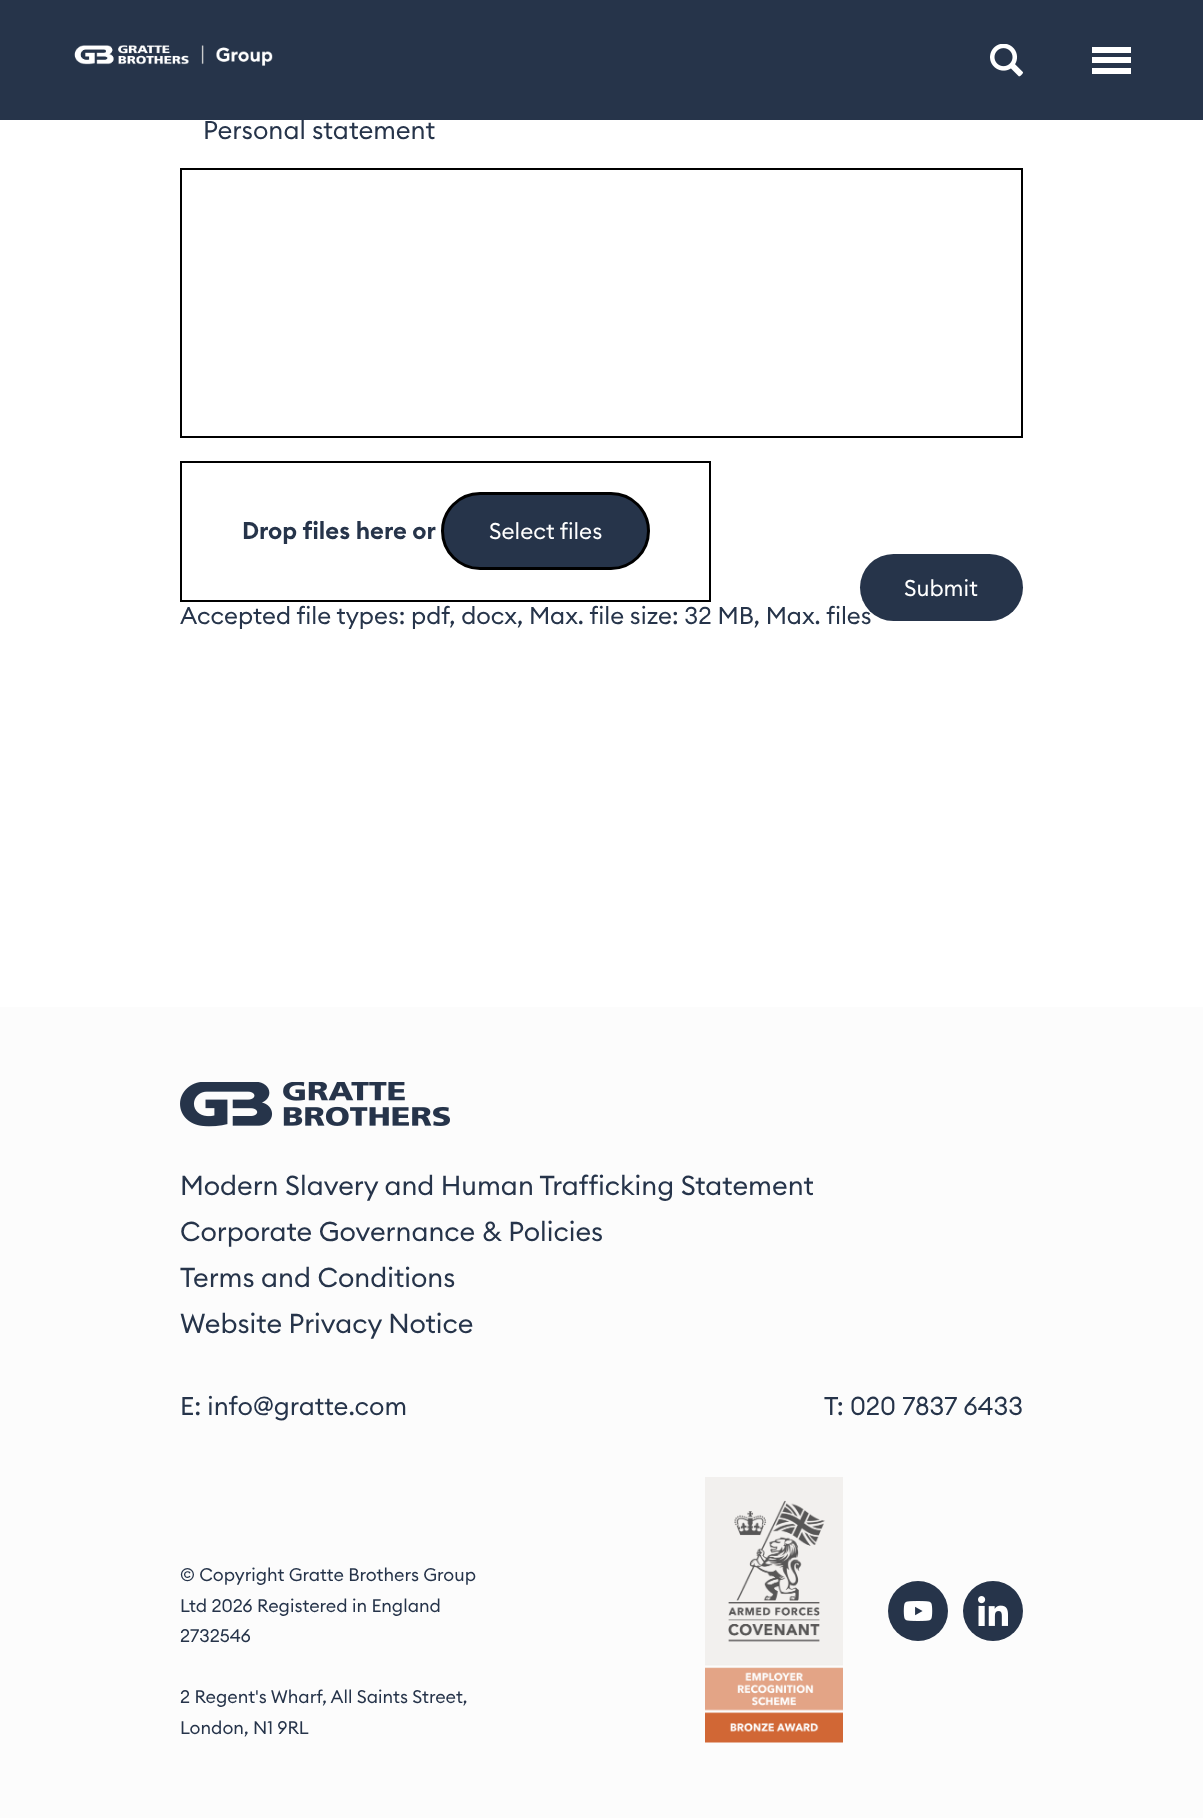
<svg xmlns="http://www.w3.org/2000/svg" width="1203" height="1818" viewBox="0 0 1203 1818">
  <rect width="100%" height="100%" fill="#ffffff"/>
  <rect x="0" y="0" width="1203" height="120" fill="#26344a"/>
  <image x="74" y="45" width="199" height="21" href="img1.png"/>
  <image x="990" y="44" width="33" height="33" href="img2.png"/>
  <rect x="1092" y="57" width="39" height="6" fill="#ffffff"/>
  <rect x="1092" y="47" width="39" height="6" fill="#ffffff"/>
  <rect x="1092" y="68" width="39" height="6" fill="#ffffff"/>
  <text x="203" y="139" font-family="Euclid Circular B" font-size="25.5" fill="#26344a">Personal statement</text>
  <rect x="181" y="169" width="841" height="268" fill="none" stroke="#000000" stroke-width="2"/>
  <rect x="181" y="462" width="529" height="139" fill="none" stroke="#000000" stroke-width="2"/>
  <text x="242" y="539" font-family="Euclid Circular B" font-size="24" font-weight="600" fill="#26344a">Drop files here or</text>
  <rect x="442.5" y="493.5" width="206" height="75" rx="37.5" fill="#26344a" stroke="#000000" stroke-width="3"/>
  <text x="489" y="539" font-family="Euclid Circular B" font-size="22.5" fill="#ffffff">Select files</text>
  <text x="180" y="624" font-family="Euclid Circular B" font-size="24" fill="#26344a">Accepted file types: pdf, docx, Max. file size: 32 MB, Max. files</text>
  <rect x="860" y="554" width="163" height="67" rx="33.5" fill="#26344a"/>
  <text x="904" y="596" font-family="Euclid Circular B" font-size="22.5" fill="#ffffff">Submit</text>
  <rect x="0" y="1007" width="1203" height="811" fill="#fcfcfc"/>
  <image x="180" y="1082" width="270" height="45" href="img3.png"/>
  <text x="180" y="1195" font-family="Euclid Circular B" font-size="27" fill="#26344a">Modern Slavery and Human Trafficking Statement</text>
  <text x="180" y="1241" font-family="Euclid Circular B" font-size="27" fill="#26344a">Corporate Governance &amp; Policies</text>
  <text x="180" y="1287" font-family="Euclid Circular B" font-size="27" fill="#26344a">Terms and Conditions</text>
  <text x="180" y="1333" font-family="Euclid Circular B" font-size="27" fill="#26344a">Website Privacy Notice</text>
  <text x="180" y="1415" font-family="Euclid Circular B" font-size="25.5" fill="#26344a">E: info@gratte.com</text>
  <text x="824" y="1415" font-family="Euclid Circular B" font-size="25.5" fill="#26344a">T: 020 7837 6433</text>
  <text x="180" y="1581" font-family="Euclid Circular B" font-size="18" fill="#26344a">© Copyright Gratte Brothers Group</text>
  <text x="180" y="1612" font-family="Euclid Circular B" font-size="18" fill="#26344a">Ltd 2026 Registered in England</text>
  <text x="180" y="1642" font-family="Euclid Circular B" font-size="18" fill="#26344a">2732546</text>
  <text x="180" y="1703" font-family="Euclid Circular B" font-size="18" fill="#26344a">2 Regent's Wharf, All Saints Street,</text>
  <text x="180" y="1734" font-family="Euclid Circular B" font-size="18" fill="#26344a">London, N1 9RL</text>
  <image x="705" y="1477" width="138" height="266" href="img4.png"/>
  <circle cx="918" cy="1611" r="30" fill="#26344a"/>
  <image x="903" y="1601" width="30" height="20" href="img5.png"/>
  <circle cx="993" cy="1611" r="30" fill="#26344a"/>
  <image x="978" y="1596" width="30" height="30" href="img6.png"/>
</svg>
